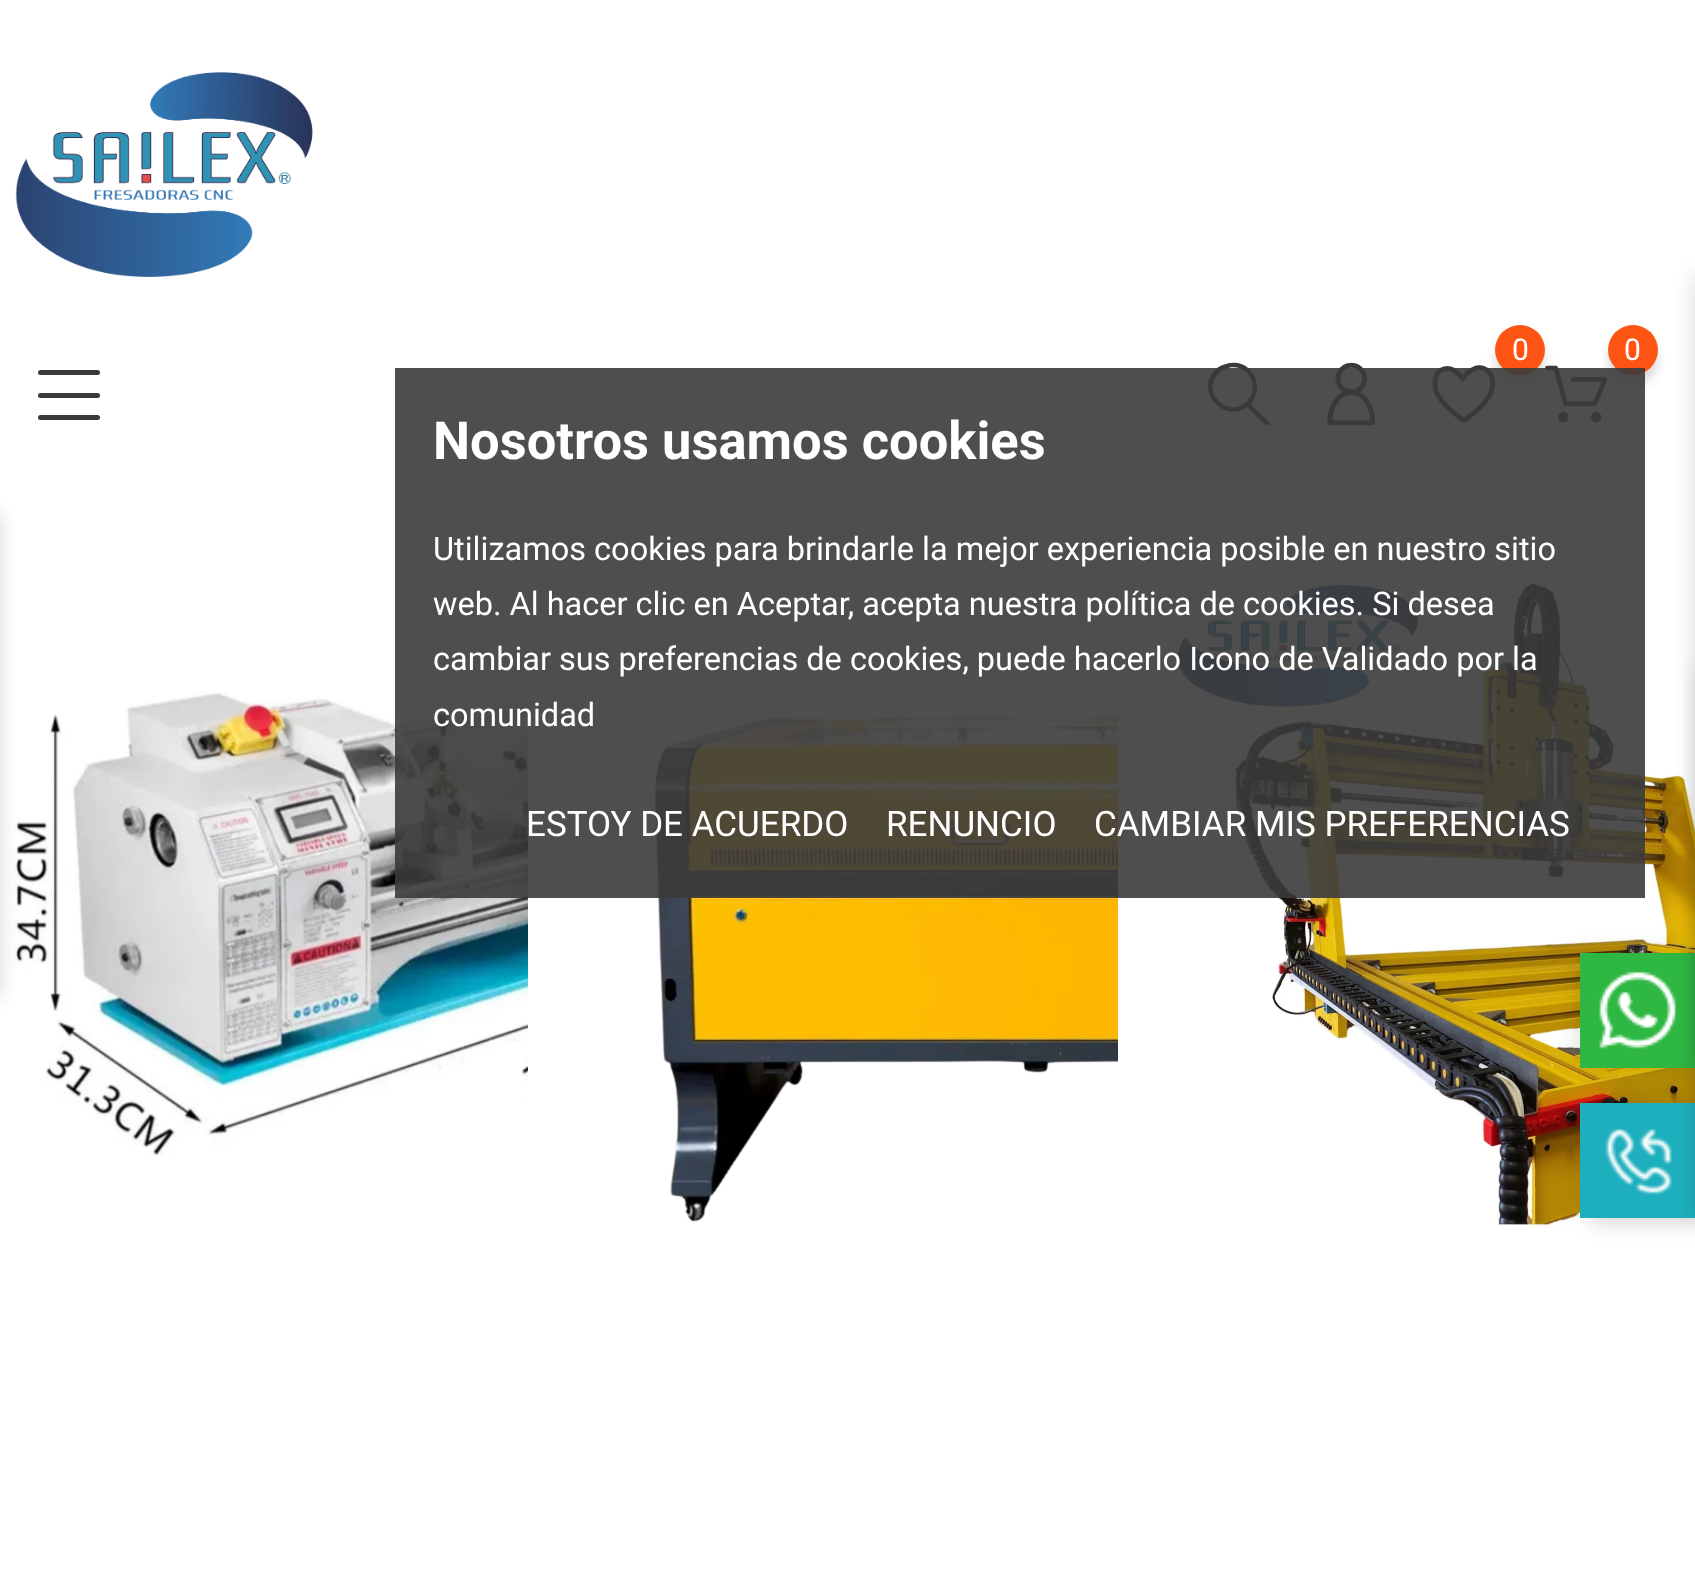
<svg xmlns="http://www.w3.org/2000/svg" width="1695" height="1591" viewBox="0 0 1695 1591">
  <defs>
    <filter id="blur1" x="-50%" y="-200%" width="200%" height="500%"><feGaussianBlur stdDeviation="10"/></filter>
    <filter id="blur2" x="-50%" y="-200%" width="200%" height="500%"><feGaussianBlur stdDeviation="11"/></filter>
    <filter id="blur3" x="-50%" y="-200%" width="200%" height="500%"><feGaussianBlur stdDeviation="5"/></filter>
  </defs>
  <rect width="100%" height="100%" fill="#ffffff"/>
  <image x="14" y="692" width="514" height="464" href="img2.png"/>
  <rect x="-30" y="515" width="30" height="480" fill="#000000" fill-opacity="0.16" filter="url(#blur1)"/>
  <image x="1167" y="583" width="528" height="645" href="img4.png"/>
  <rect x="1590" y="1108" width="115" height="115" fill="#000000" fill-opacity="0.16" filter="url(#blur1)"/>
  <rect x="1580" y="1103" width="115" height="115" fill="#1eafbe"/>
  <image x="1605" y="1129" width="67" height="66" href="img1.png"/>
  <rect x="1580" y="953" width="115" height="115" fill="#000000" fill-opacity="0.15" filter="url(#blur2)"/>
  <rect x="1580" y="953" width="115" height="115" fill="#2eb743"/>
  <image x="1599" y="971" width="77" height="78" href="img5.png"/>
  <rect x="1695" y="275" width="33" height="943" fill="#000000" fill-opacity="0.15" filter="url(#blur2)"/>
  <image x="654" y="716" width="464" height="506" href="img3.png"/>
  <rect x="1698" y="665" width="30" height="403" fill="#000000" fill-opacity="0.15" filter="url(#blur2)"/>
  <image x="15" y="72" width="298" height="205" href="img6.png"/>
  <image x="1432" y="365" width="63" height="58" href="img7.png"/>
  <rect x="1495" y="335" width="50" height="50" rx="25" fill="#000000" fill-opacity="0.14" filter="url(#blur3)"/>
  <circle cx="1520" cy="350" r="25" fill="#ff5514"/>
  <text x="1512" y="360" font-family="Roboto" font-size="30" fill="#ffffff">0</text>
  <image x="1545" y="365" width="63" height="58" href="img8.png"/>
  <rect x="1608" y="335" width="50" height="50" rx="25" fill="#000000" fill-opacity="0.14" filter="url(#blur3)"/>
  <circle cx="1633" cy="350" r="25" fill="#ff5514"/>
  <text x="1624" y="360" font-family="Roboto" font-size="30" fill="#ffffff">0</text>
  <path d="M1251 404C1255 399 1257 393 1257 387C1257 376 1249 365 1238 363C1230 362 1223 364 1217 368C1193 388 1222 425 1247 407L1259 419C1261 420 1265 426 1268 425C1273 423 1263 416 1262 416ZM1219 401C1200 383 1228 355 1247 373C1265 392 1237 420 1219 401Z" fill="#3a3a3a"/>
  <image x="1327" y="362" width="49" height="64" href="img9.png"/>
  <rect x="38" y="370" width="62" height="5" rx="2.5" fill="#3a3a3a"/>
  <rect x="38" y="393" width="62" height="5" rx="2.5" fill="#3a3a3a"/>
  <rect x="38" y="415" width="62" height="5" rx="2.5" fill="#3a3a3a"/>
  <rect x="395" y="368" width="1250" height="530" fill="#3b3b3b" fill-opacity="0.9"/>
  <text x="433" y="459" font-family="Roboto" font-size="52.5" font-weight="bold" fill="#ffffff">Nosotros usamos cookies</text>
  <text x="433" y="560" font-family="Roboto" font-size="32.5" fill="#ffffff">Utilizamos cookies para brindarle la mejor experiencia posible en nuestro sitio</text>
  <text x="433" y="615" font-family="Roboto" font-size="32.5" fill="#ffffff">web. Al hacer clic en Aceptar, acepta nuestra política de cookies. Si desea</text>
  <text x="433" y="670" font-family="Roboto" font-size="32.5" fill="#ffffff">cambiar sus preferencias de cookies, puede hacerlo Icono de Validado por la</text>
  <text x="433" y="726" font-family="Roboto" font-size="32.5" fill="#ffffff">comunidad</text>
  <text x="526" y="836" font-family="Roboto" font-size="35" fill="#ffffff">ESTOY DE ACUERDO</text>
  <text x="886" y="836" font-family="Roboto" font-size="35" fill="#ffffff">RENUNCIO</text>
  <text x="1094" y="836" font-family="Roboto" font-size="35" fill="#ffffff">CAMBIAR MIS PREFERENCIAS</text>
</svg>
